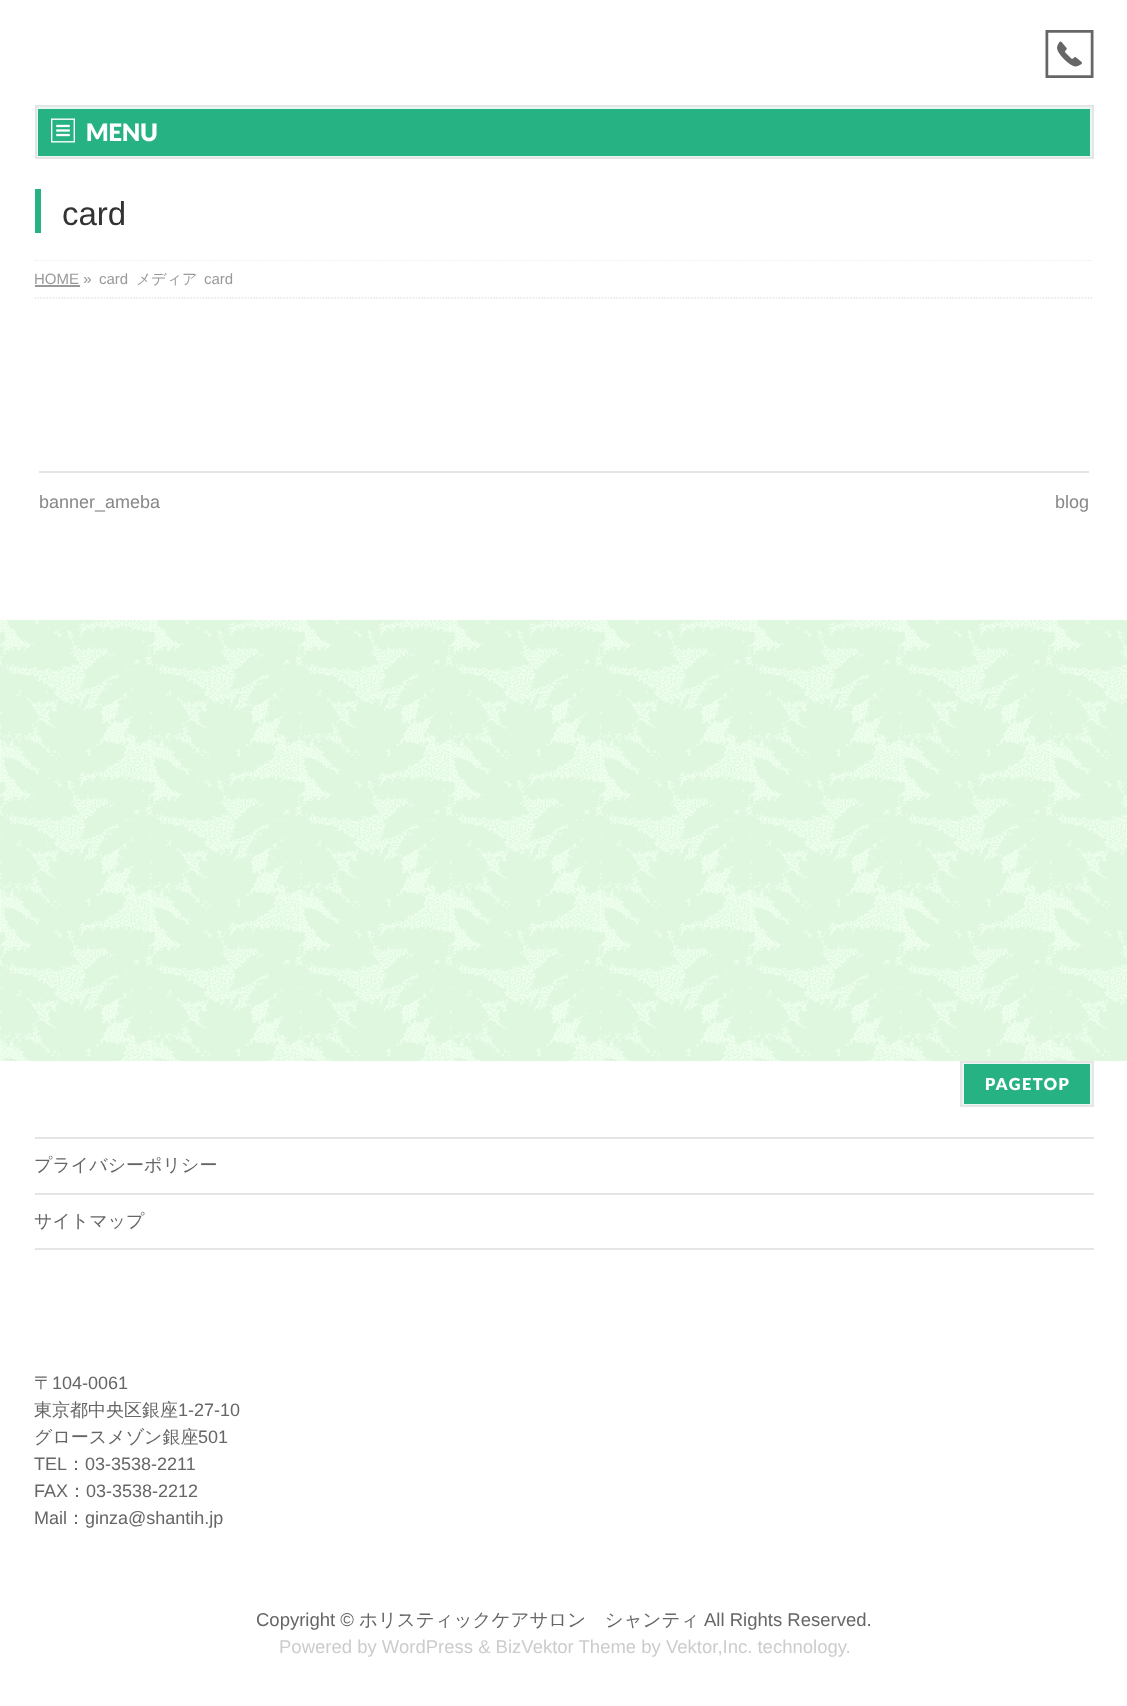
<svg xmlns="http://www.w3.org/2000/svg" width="1127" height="1706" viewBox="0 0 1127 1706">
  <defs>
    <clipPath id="clip1"><rect x="0" y="260" width="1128" height="39"/></clipPath>
  </defs>
  <rect width="100%" height="100%" fill="#ffffff"/>
  <image x="0" y="620" width="1127" height="441" href="img1.png"/>
  <image x="1045" y="30" width="49" height="48" href="img2.png"/>
  <rect x="37" y="108" width="1054" height="49" fill="#27b284" stroke="#e9f7f3" stroke-width="2"/>
  <rect x="36" y="106" width="1057" height="52" fill="none" stroke="#e5e5e5" stroke-width="2"/>
  <image x="51" y="118" width="24" height="25" href="img3.png"/>
  <text x="86" y="141" font-family="Lato" font-size="24" font-weight="900" fill="#ffffff">MENU</text>
  <rect x="35" y="189" width="6" height="44" fill="#27b284"/>
  <text x="62" y="225" font-family="Liberation Sans" font-size="33" fill="#333333">card</text>
  <g clip-path="url(#clip1)">
    <path d="M34.5 260H1093.5" fill="none" stroke="#e5e5e5" stroke-width="1.5" stroke-dasharray="1.5 1.5"/>
  </g>
  <path d="M34.5 298H1093.5" fill="none" stroke="#e5e5e5" stroke-width="1.5" stroke-dasharray="1.5 1.5"/>
  <text x="34" y="284" font-family="Liberation Sans" font-size="15" fill="#999999">HOME »</text>
  <rect x="35" y="285" width="45" height="2" fill="#999999"/>
  <text x="99" y="284" font-family="Liberation Sans" font-size="15" fill="#999999">card</text>
  <text x="136" y="284" font-family="WenQuanYi Zen Hei" font-size="15" font-weight="500" fill="#999999">メディア</text>
  <text x="204" y="284" font-family="Liberation Sans" font-size="15" fill="#999999">card</text>
  <rect x="39" y="471" width="1050" height="2" fill="#e5e5e5"/>
  <text x="39" y="508" font-family="Liberation Sans" font-size="18" fill="#888888">banner_ameba</text>
  <text x="1055" y="508" font-family="Liberation Sans" font-size="18" fill="#888888">blog</text>
  <rect x="963" y="1063" width="128" height="42" fill="#27b284" stroke="#e9f7f3" stroke-width="2"/>
  <rect x="961" y="1062" width="132" height="44" fill="none" stroke="#e5e5e5" stroke-width="2"/>
  <text x="985" y="1090" font-family="Lato" font-size="16.5" font-weight="900" letter-spacing="1.5" fill="#ffffff">PAGETOP</text>
  <rect x="35" y="1137" width="1059" height="2" fill="#e5e5e5"/>
  <rect x="35" y="1193" width="1059" height="2" fill="#e5e5e5"/>
  <text x="34" y="1171" font-family="WenQuanYi Zen Hei" font-size="18" font-weight="500" fill="#666666">プライバシーポリシー</text>
  <rect x="35" y="1248" width="1059" height="2" fill="#e5e5e5"/>
  <text x="34" y="1227" font-family="WenQuanYi Zen Hei" font-size="18" font-weight="500" fill="#666666">サイトマップ</text>
  <text x="34" y="1389" font-family="WenQuanYi Zen Hei" font-size="18" font-weight="500" fill="#666666">〒</text>
  <text x="52" y="1389" font-family="Liberation Sans" font-size="18" fill="#666666">104-0061</text>
  <text x="34" y="1416" font-family="WenQuanYi Zen Hei" font-size="18" font-weight="500" fill="#666666">東京都中央区銀座</text>
  <text x="178" y="1416" font-family="Liberation Sans" font-size="18" fill="#666666">1-27-10</text>
  <text x="34" y="1443" font-family="WenQuanYi Zen Hei" font-size="18" font-weight="500" fill="#666666">グロースメゾン銀座</text>
  <text x="198" y="1443" font-family="Liberation Sans" font-size="18" fill="#666666">501</text>
  <text x="34" y="1470" font-family="Liberation Sans" font-size="18" fill="#666666">TEL</text>
  <text x="67" y="1470" font-family="WenQuanYi Zen Hei" font-size="18" font-weight="500" fill="#666666">：</text>
  <text x="85" y="1470" font-family="Liberation Sans" font-size="18" fill="#666666">03-3538-2211</text>
  <text x="34" y="1497" font-family="Liberation Sans" font-size="18" fill="#666666">FAX</text>
  <text x="68" y="1497" font-family="WenQuanYi Zen Hei" font-size="18" font-weight="500" fill="#666666">：</text>
  <text x="86" y="1497" font-family="Liberation Sans" font-size="18" fill="#666666">03-3538-2212</text>
  <text x="34" y="1524" font-family="Liberation Sans" font-size="18" fill="#666666">Mail</text>
  <text x="67" y="1524" font-family="WenQuanYi Zen Hei" font-size="18" font-weight="500" fill="#666666">：</text>
  <text x="85" y="1524" font-family="Liberation Sans" font-size="18" fill="#666666">ginza@shantih.jp</text>
  <text x="256" y="1626" font-family="Liberation Sans" font-size="18.5" fill="#666666">Copyright ©</text>
  <text x="359" y="1626" font-family="WenQuanYi Zen Hei" font-size="18.5" font-weight="500" fill="#666666">ホリスティックケアサロン　シャンティ</text>
  <text x="704" y="1626" font-family="Liberation Sans" font-size="18.5" fill="#666666">All Rights Reserved.</text>
  <text x="279" y="1653" font-family="Liberation Sans" font-size="18.5" fill="#cccccc">Powered by WordPress &amp; BizVektor Theme by Vektor,Inc. technology.</text>
</svg>
